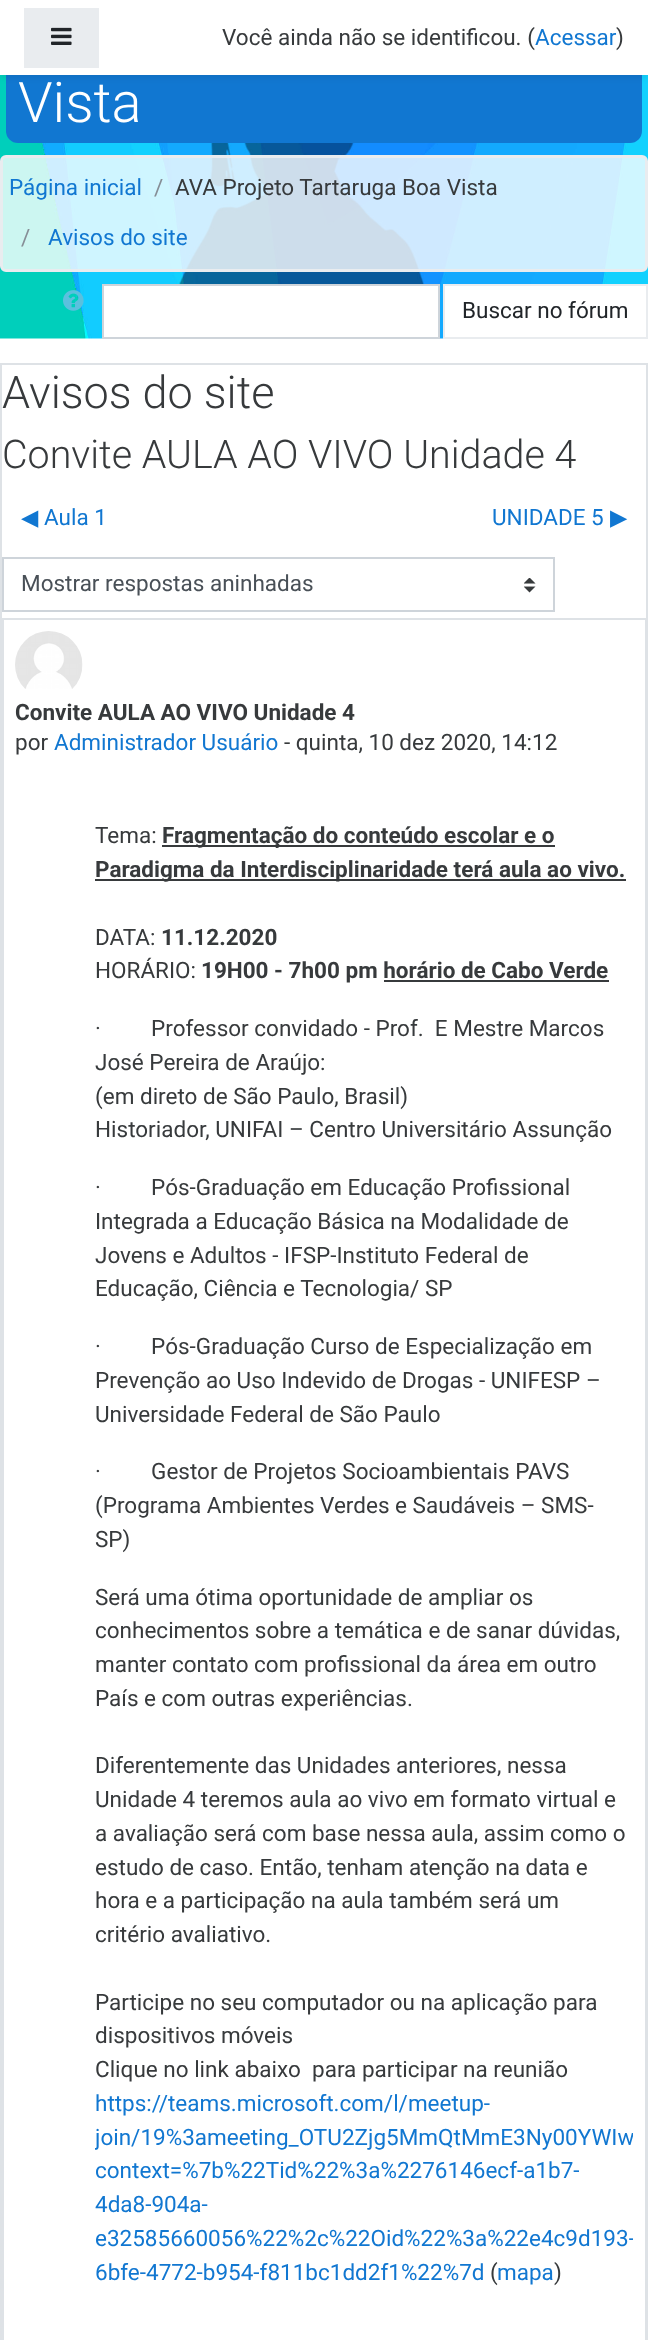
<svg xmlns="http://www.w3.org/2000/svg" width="648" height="2340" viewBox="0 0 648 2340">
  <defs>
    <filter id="blur1" x="-50%" y="-200%" width="200%" height="500%"><feGaussianBlur stdDeviation="3"/></filter>
    <clipPath id="clip1"><rect x="95" y="795" width="538" height="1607"/></clipPath>
  </defs>
  <rect width="100%" height="100%" fill="#ffffff"/>
  <image x="0" y="75" width="648" height="264" href="img2.png"/>
  <rect x="6" y="-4" width="636" height="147" rx="12" fill="#1177d1"/>
  <rect x="0" y="3" width="648" height="75" fill="#000000" fill-opacity="0.08" filter="url(#blur1)"/>
  <rect x="0" y="0" width="648" height="75" fill="#ffffff"/>
  <rect x="24" y="8" width="75" height="60" fill="#e9ecef"/>
  <image x="51" y="27" width="21" height="18" href="img1.png"/>
  <text x="222" y="45" font-family="Roboto" font-size="22.5" fill="#373a3c">Você ainda não se identificou. (</text>
  <text x="535" y="45" font-family="Roboto" font-size="22.5" fill="#1177d1">Acessar</text>
  <text x="616" y="45" font-family="Roboto" font-size="22.5" fill="#373a3c">)</text>
  <text x="18" y="122" font-family="Roboto" font-size="56" font-weight="300" fill="#ffffff">Vista</text>
  <rect x="1.5" y="156.5" width="645" height="114" rx="4.5" fill="#ffffff" fill-opacity="0.8" stroke="#e9ecef" stroke-width="3"/>
  <text x="9" y="195" font-family="Roboto" font-size="22.5" fill="#1177d1">Página inicial</text>
  <text x="154" y="195" font-family="Roboto" font-size="22.5" fill="#868e96">/</text>
  <text x="175" y="195" font-family="Roboto" font-size="22.5" fill="#373a3c">AVA Projeto Tartaruga Boa Vista</text>
  <text x="21" y="245" font-family="Roboto" font-size="22.5" fill="#868e96">/</text>
  <text x="48" y="245" font-family="Roboto" font-size="22.5" fill="#1177d1">Avisos do site</text>
  <image x="63" y="290" width="21" height="21" href="img3.png"/>
  <rect x="103" y="285" width="336" height="53" fill="#ffffff" stroke="#ced4da" stroke-width="2"/>
  <rect x="444" y="285" width="203" height="53" fill="#ffffff" stroke="#e9ecef" stroke-width="2"/>
  <text x="462" y="318" font-family="Roboto" font-size="22.5" fill="#212529">Buscar no fórum</text>
  <rect x="1" y="364" width="646" height="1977" fill="none" stroke="#dee2e6" stroke-width="2"/>
  <text x="2" y="408" font-family="Roboto" font-size="45" font-weight="300" fill="#373a3c">Avisos do site</text>
  <text x="2" y="468" font-family="Roboto" font-size="39.4" font-weight="300" fill="#373a3c">Convite AULA AO VIVO Unidade 4</text>
  <text x="21" y="525" font-family="DejaVu Sans" font-size="22.5" fill="#1177d1">◀︎</text>
  <text x="44" y="525" font-family="Roboto" font-size="22.5" fill="#1177d1">Aula 1</text>
  <text x="492" y="525" font-family="Roboto" font-size="22.5" fill="#1177d1">UNIDADE 5</text>
  <text x="610" y="525" font-family="DejaVu Sans" font-size="22.5" fill="#1177d1">▶︎</text>
  <image x="524" y="578" width="12" height="15" href="img4.png"/>
  <rect x="3" y="558" width="551" height="53" fill="none" stroke="#ced4da" stroke-width="2"/>
  <text x="21" y="591" font-family="Roboto" font-size="22.5" fill="#495057">Mostrar respostas aninhadas</text>
  <rect x="3" y="619" width="643" height="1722" fill="none" stroke="#dee2e6" stroke-width="2"/>
  <image x="15" y="631" width="68" height="58" href="img5.png"/>
  <text x="15" y="720" font-family="Roboto" font-size="22.5" font-weight="bold" fill="#373a3c">Convite AULA AO VIVO Unidade 4</text>
  <text x="15" y="750" font-family="Roboto" font-size="22.5" fill="#373a3c">por</text>
  <text x="54" y="750" font-family="Roboto" font-size="22.5" fill="#1177d1">Administrador Usuário</text>
  <text x="284" y="750" font-family="Roboto" font-size="22.5" fill="#373a3c">- quinta, 10 dez 2020, 14:12</text>
  <text x="95" y="843" font-family="Roboto" font-size="22.5" fill="#373a3c">Tema:</text>
  <rect x="162" y="845" width="393" height="2" fill="#373a3c"/>
  <text x="162" y="843" font-family="Roboto" font-size="22.5" font-weight="bold" fill="#373a3c">Fragmentação do conteúdo escolar e o</text>
  <rect x="95" y="879" width="531" height="2" fill="#373a3c"/>
  <text x="95" y="877" font-family="Roboto" font-size="22.5" font-weight="bold" fill="#373a3c">Paradigma da Interdisciplinaridade terá aula ao vivo.</text>
  <text x="95" y="945" font-family="Roboto" font-size="22.5" fill="#373a3c">DATA:</text>
  <text x="161" y="945" font-family="Roboto" font-size="22.5" font-weight="bold" fill="#373a3c">11.12.2020</text>
  <text x="95" y="978" font-family="Roboto" font-size="22.5" fill="#373a3c">HORÁRIO:</text>
  <text x="201" y="978" font-family="Roboto" font-size="22.5" font-weight="bold" fill="#373a3c">19H00 - 7h00 pm horário de Cabo Verde</text>
  <rect x="384" y="980" width="225" height="2" fill="#373a3c"/>
  <text x="95" y="1036" font-family="Roboto" font-size="22.5" fill="#373a3c" xml:space="preserve">·         Professor convidado - Prof.  E Mestre Marcos</text>
  <text x="95" y="1070" font-family="Roboto" font-size="22.5" fill="#373a3c">José Pereira de Araújo:</text>
  <text x="95" y="1104" font-family="Roboto" font-size="22.5" fill="#373a3c">(em direto de São Paulo, Brasil)</text>
  <text x="95" y="1137" font-family="Roboto" font-size="22.5" fill="#373a3c">Historiador, UNIFAI – Centro Universitário Assunção</text>
  <text x="95" y="1195" font-family="Roboto" font-size="22.5" fill="#373a3c" xml:space="preserve">·         Pós-Graduação em Educação Profissional</text>
  <text x="95" y="1229" font-family="Roboto" font-size="22.5" fill="#373a3c">Integrada a Educação Básica na Modalidade de</text>
  <text x="95" y="1263" font-family="Roboto" font-size="22.5" fill="#373a3c">Jovens e Adultos - IFSP-Instituto Federal de</text>
  <text x="95" y="1296" font-family="Roboto" font-size="22.5" fill="#373a3c">Educação, Ciência e Tecnologia/ SP</text>
  <text x="95" y="1354" font-family="Roboto" font-size="22.5" fill="#373a3c" xml:space="preserve">·         Pós-Graduação Curso de Especialização em</text>
  <text x="95" y="1388" font-family="Roboto" font-size="22.5" fill="#373a3c">Prevenção ao Uso Indevido de Drogas - UNIFESP –</text>
  <text x="95" y="1422" font-family="Roboto" font-size="22.5" fill="#373a3c">Universidade Federal de São Paulo</text>
  <text x="95" y="1479" font-family="Roboto" font-size="22.5" fill="#373a3c" xml:space="preserve">·         Gestor de Projetos Socioambientais PAVS</text>
  <text x="95" y="1513" font-family="Roboto" font-size="22.5" fill="#373a3c">(Programa Ambientes Verdes e Saudáveis – SMS-</text>
  <text x="95" y="1547" font-family="Roboto" font-size="22.5" fill="#373a3c">SP)</text>
  <text x="95" y="1605" font-family="Roboto" font-size="22.5" fill="#373a3c">Será uma ótima oportunidade de ampliar os</text>
  <text x="95" y="1638" font-family="Roboto" font-size="22.5" fill="#373a3c">conhecimentos sobre a temática e de sanar dúvidas,</text>
  <text x="95" y="1672" font-family="Roboto" font-size="22.5" fill="#373a3c">manter contato com profissional da área em outro</text>
  <text x="95" y="1706" font-family="Roboto" font-size="22.5" fill="#373a3c">País e com outras experiências.</text>
  <text x="95" y="1773" font-family="Roboto" font-size="22.5" fill="#373a3c">Diferentemente das Unidades anteriores, nessa</text>
  <text x="95" y="1807" font-family="Roboto" font-size="22.5" fill="#373a3c">Unidade 4 teremos aula ao vivo em formato virtual e</text>
  <text x="95" y="1841" font-family="Roboto" font-size="22.5" fill="#373a3c">a avaliação será com base nessa aula, assim como o</text>
  <text x="95" y="1875" font-family="Roboto" font-size="22.5" fill="#373a3c">estudo de caso. Então, tenham atenção na data e</text>
  <text x="95" y="1908" font-family="Roboto" font-size="22.5" fill="#373a3c">hora e a participação na aula também será um</text>
  <text x="95" y="1942" font-family="Roboto" font-size="22.5" fill="#373a3c">critério avaliativo.</text>
  <text x="95" y="2010" font-family="Roboto" font-size="22.5" fill="#373a3c">Participe no seu computador ou na aplicação para</text>
  <text x="95" y="2043" font-family="Roboto" font-size="22.5" fill="#373a3c">dispositivos móveis</text>
  <text x="95" y="2077" font-family="Roboto" font-size="22.5" fill="#373a3c" xml:space="preserve">Clique no link abaixo  para participar na reunião</text>
  <text x="95" y="2111" font-family="Roboto" font-size="22.5" fill="#1177d1">https://teams.microsoft.com/l/meetup-</text>
  <g clip-path="url(#clip1)">
    <text x="95" y="2145" font-family="Roboto" font-size="22.5" fill="#1177d1">join/19%3ameeting_OTU2Zjg5MmQtMmE3Ny00YWIw</text>
  </g>
  <text x="95" y="2178" font-family="Roboto" font-size="22.5" fill="#1177d1">context=%7b%22Tid%22%3a%2276146ecf-a1b7-</text>
  <text x="95" y="2212" font-family="Roboto" font-size="22.5" fill="#1177d1">4da8-904a-</text>
  <g clip-path="url(#clip1)">
    <text x="95" y="2246" font-family="Roboto" font-size="22.5" fill="#1177d1">e32585660056%22%2c%22Oid%22%3a%22e4c9d193-</text>
  </g>
  <text x="95" y="2280" font-family="Roboto" font-size="22.5" fill="#1177d1">6bfe-4772-b954-f811bc1dd2f1%22%7d</text>
  <text x="490" y="2280" font-family="Roboto" font-size="22.5" fill="#373a3c">(</text>
  <text x="497" y="2280" font-family="Roboto" font-size="22.5" fill="#1177d1">mapa</text>
  <text x="554" y="2280" font-family="Roboto" font-size="22.5" fill="#373a3c">)</text>
</svg>
